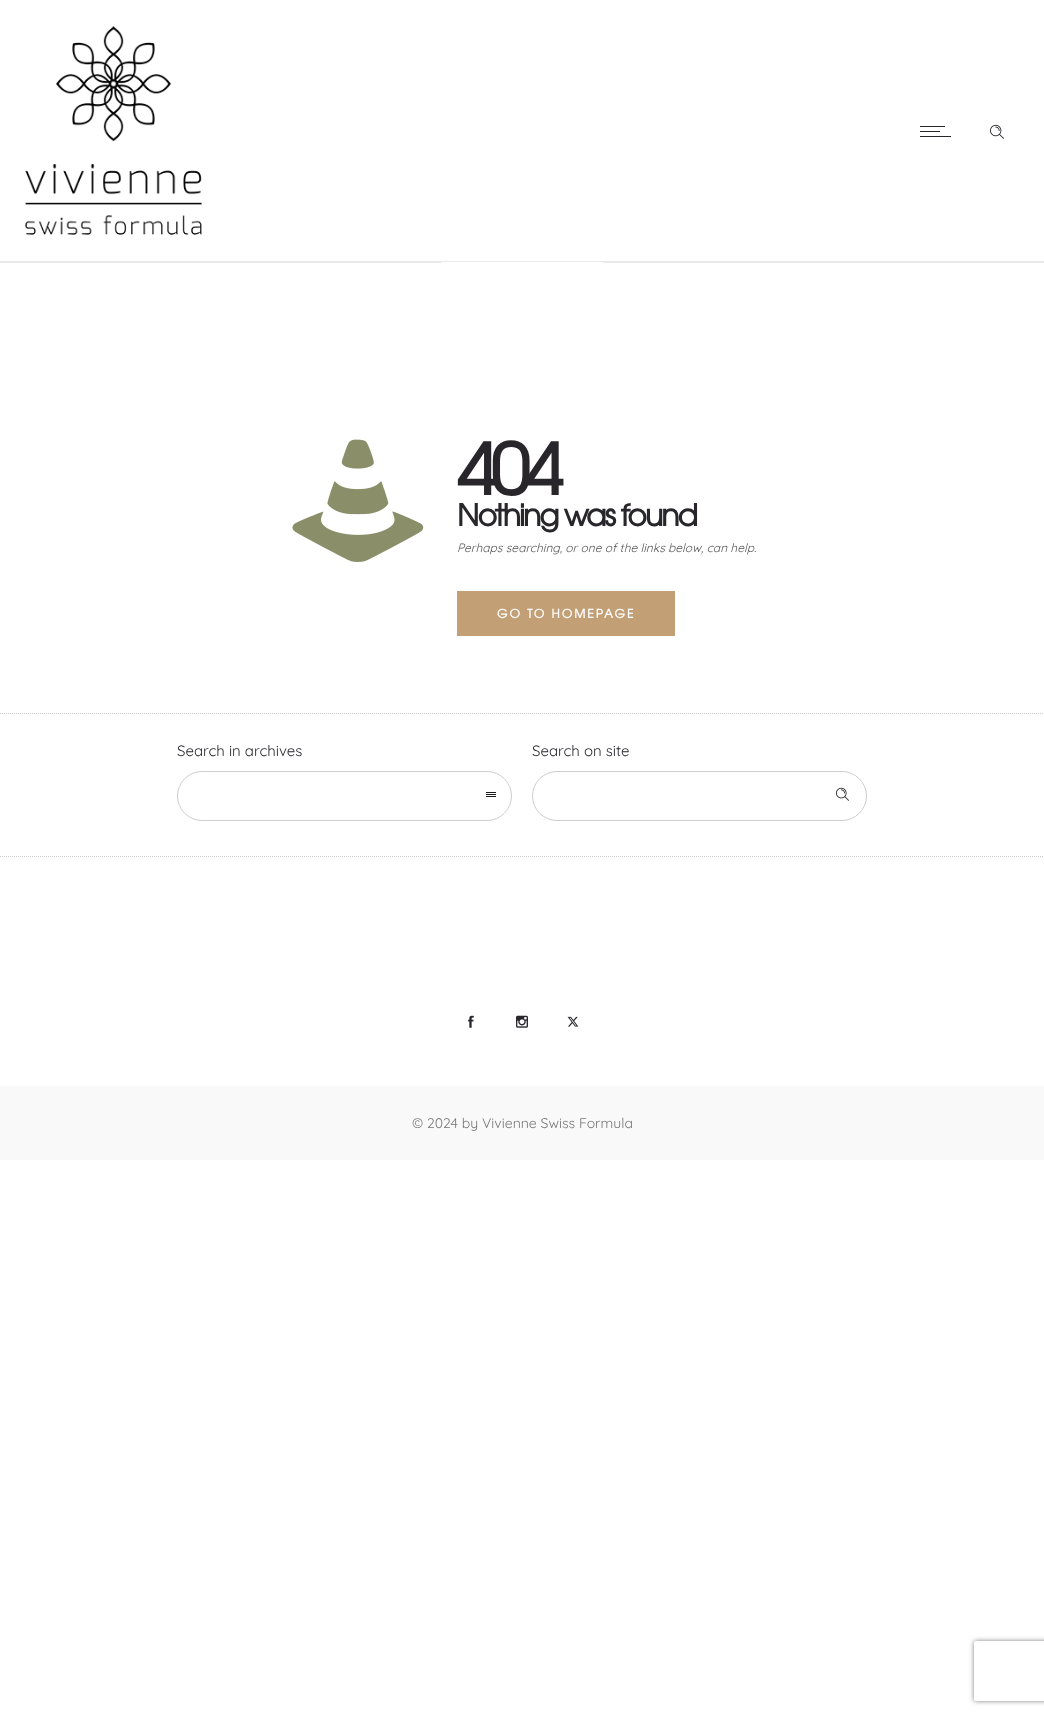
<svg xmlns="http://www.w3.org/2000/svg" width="1044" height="1715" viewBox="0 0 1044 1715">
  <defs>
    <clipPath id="clip1"><path d="M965 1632H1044V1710H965ZM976 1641H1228C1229 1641 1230 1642 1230 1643V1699C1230 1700 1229 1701 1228 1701H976C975 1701 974 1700 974 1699V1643C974 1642 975 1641 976 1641Z" clip-rule="evenodd"/></clipPath>
    <filter id="blur1" x="-50%" y="-200%" width="200%" height="500%"><feGaussianBlur stdDeviation="2.5"/></filter>
  </defs>
  <rect width="100%" height="100%" fill="#ffffff"/>
  <rect x="0" y="261" width="1044" height="1" fill="#eae9ea"/>
  <image x="25" y="26" width="177" height="209" href="img1.png"/>
  <rect x="920" y="126" width="25" height="1" fill="#28262b"/>
  <rect x="920" y="131" width="20" height="1" fill="#28262b"/>
  <rect x="920" y="136" width="31" height="1" fill="#28262b"/>
  <image x="990" y="124" width="14" height="15" href="img2.png"/>
  <rect x="0" y="262" width="1044" height="1" fill="#e8e8e8"/>
  <rect x="440" y="262" width="164" height="1" fill="#ffffff"/>
  <rect x="603" y="262" width="1" height="1" fill="#e8e8e8"/>
  <rect x="440" y="262" width="1" height="1" fill="#e8e8e8"/>
  <image x="292" y="439" width="132" height="123" href="img3.png"/>
  <text x="457" y="495" font-family="TeX Gyre Adventor" font-size="70" font-weight="bold" letter-spacing="-5" fill="#28262b">404</text>
  <text x="457" y="526" font-family="TeX Gyre Adventor" font-size="30" font-weight="bold" letter-spacing="-2" fill="#28262b">Nothing was found</text>
  <text x="457" y="552" font-family="Quicksand" font-size="12" font-style="italic" fill="#565656">Perhaps searching, or one of the links below, can help.</text>
  <rect x="457" y="591" width="218" height="45" fill="#c39f76"/>
  <text x="497" y="618" font-family="TeX Gyre Adventor" font-size="12" font-weight="bold" letter-spacing="2" fill="#ffffff">GO TO HOMEPAGE</text>
  <path d="M0 713.5H1044" fill="none" stroke="#cdcdcd" stroke-dasharray="1 1"/>
  <path d="M0 856.5H1044" fill="none" stroke="#cdcdcd" stroke-dasharray="1 1"/>
  <text x="177" y="756" font-family="Quicksand" font-size="15" fill="#28262b">Search in archives</text>
  <rect x="177.5" y="771.5" width="334" height="49" rx="24.5" fill="none" stroke="#cdcdcd"/>
  <rect x="486" y="796" width="10" height="1" fill="#1b1b1b"/>
  <rect x="486" y="792" width="10" height="1" fill="#1b1b1b"/>
  <rect x="486" y="794" width="10" height="1" fill="#1b1b1b"/>
  <text x="532" y="756" font-family="Quicksand" font-size="15" fill="#28262b">Search on site</text>
  <image x="836" y="787" width="13" height="14" href="img4.png"/>
  <rect x="532.5" y="771.5" width="334" height="49" rx="24.5" fill="none" stroke="#cdcdcd"/>
  <image x="468" y="1015" width="6" height="13" href="img5.png"/>
  <image x="516" y="1015" width="12" height="13" href="img6.png"/>
  <image x="567" y="1016" width="12" height="11" href="img7.png"/>
  <rect x="0" y="1086" width="1044" height="74" fill="#f9f9f9"/>
  <text x="412" y="1128" font-family="Quicksand" font-size="14" fill="#777777">© 2024 by Vivienne Swiss Formula</text>
  <g clip-path="url(#clip1)">
    <rect x="974" y="1641" width="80" height="60" rx="2" fill="#808080" filter="url(#blur1)"/>
  </g>
</svg>
